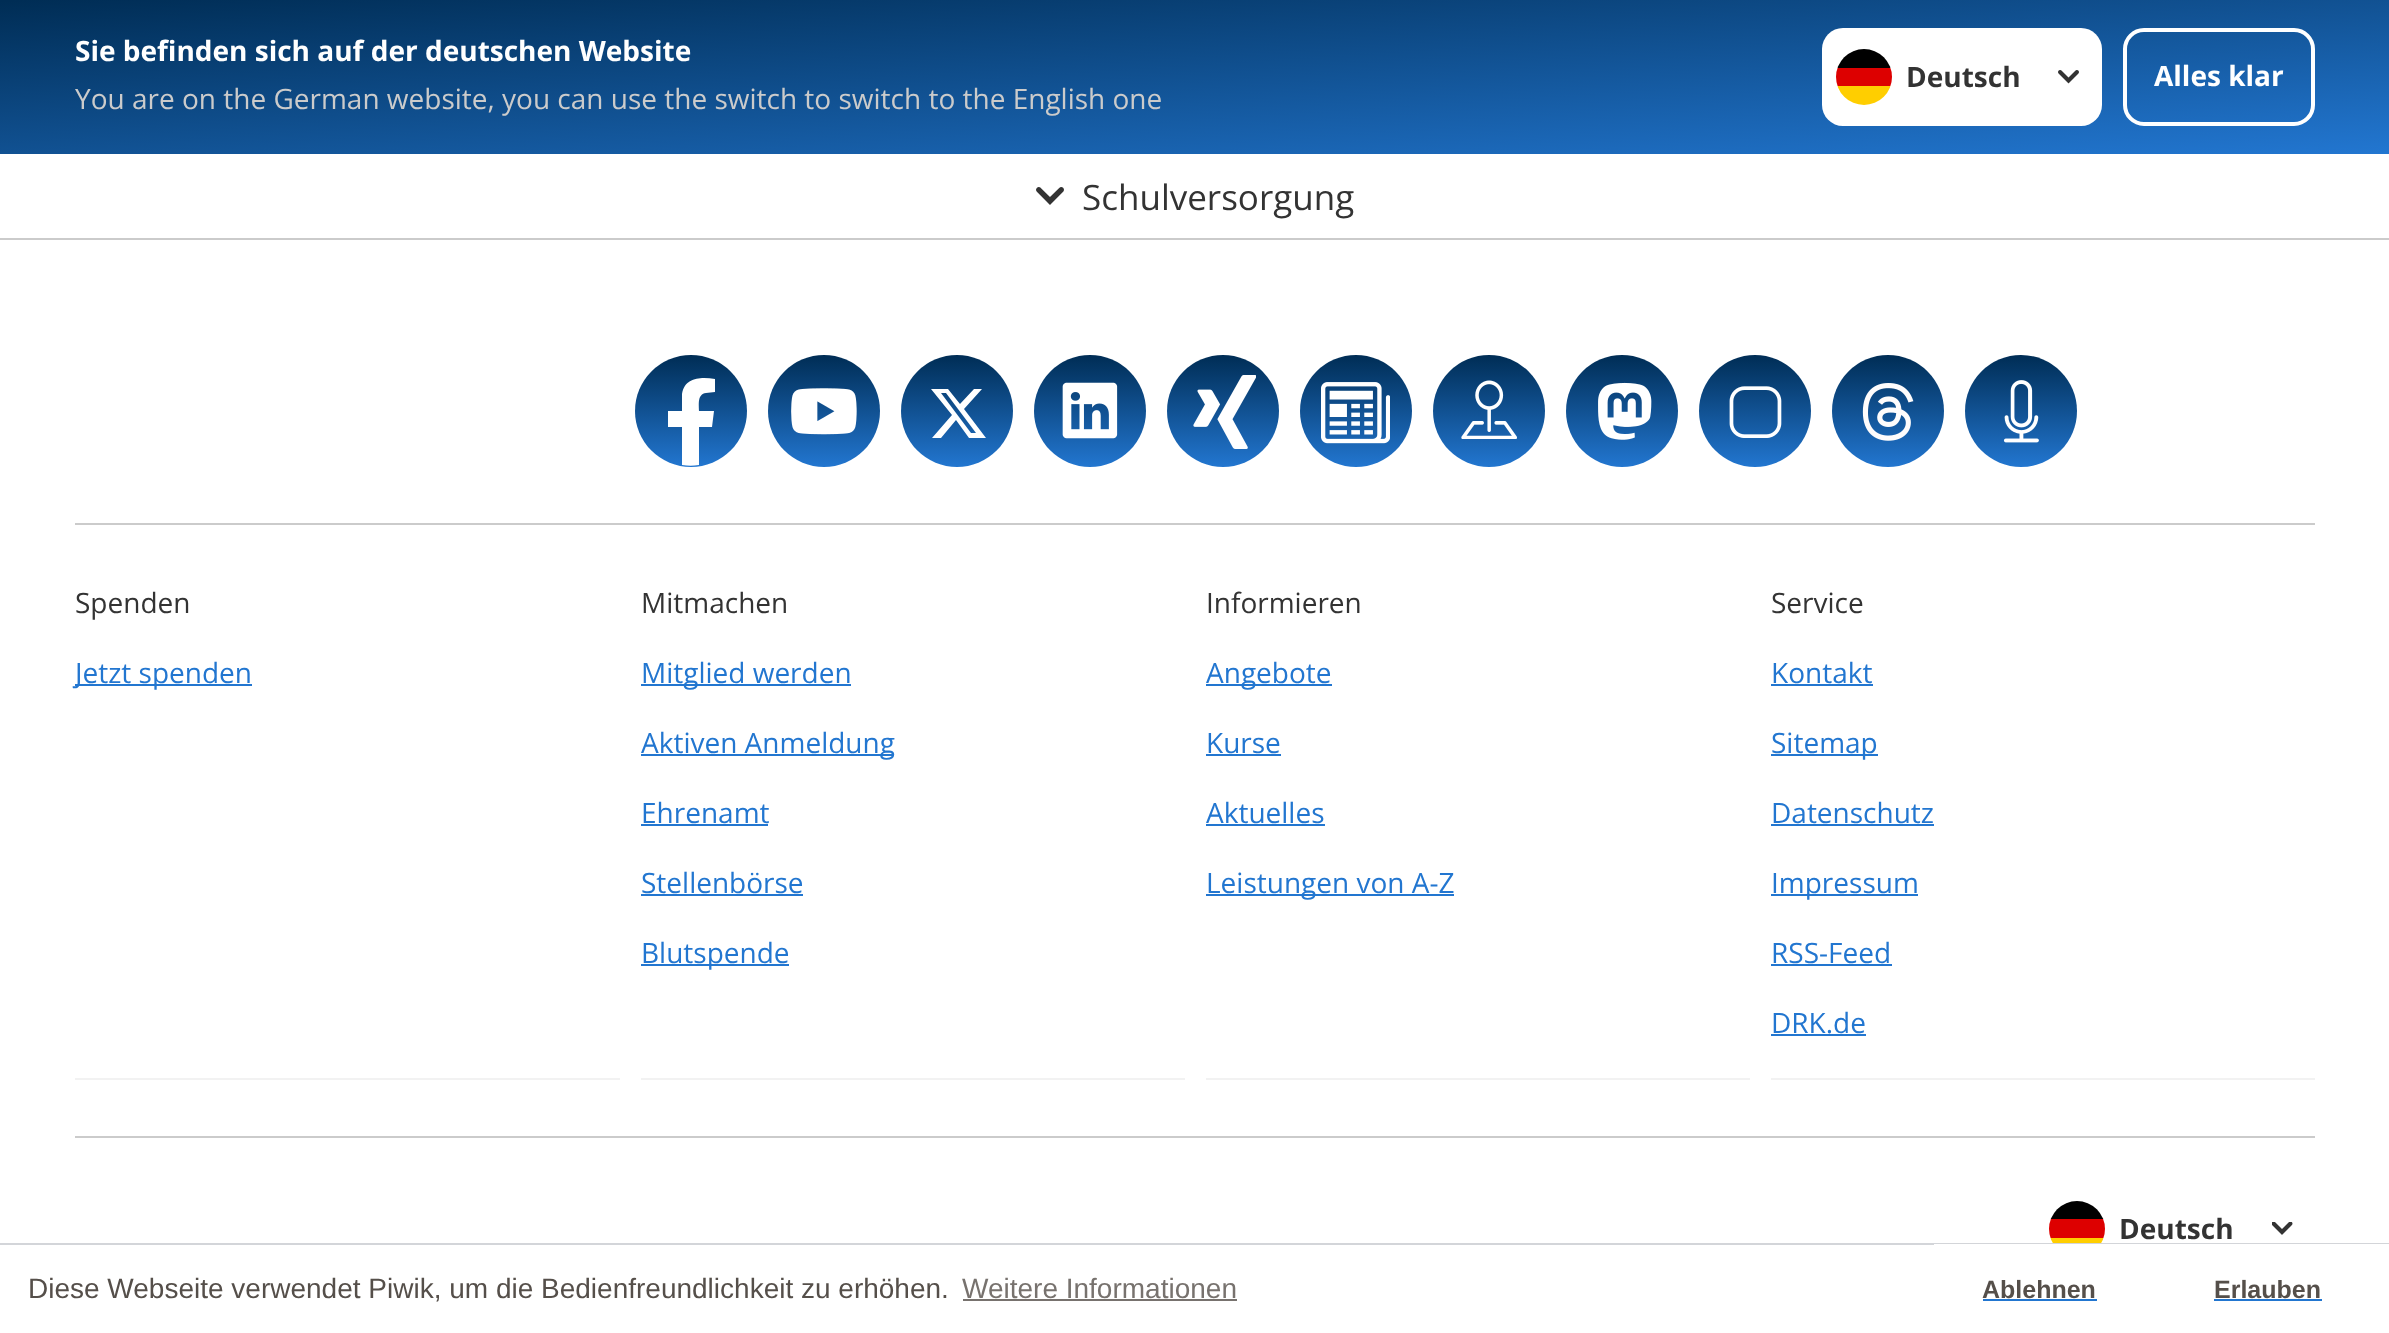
<svg xmlns="http://www.w3.org/2000/svg" width="2389" height="1333" viewBox="0 0 2389 1333">
  <defs>
    <linearGradient id="g1" gradientUnits="userSpaceOnUse" x1="1185" y1="-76" x2="1205" y2="230"><stop offset="0" stop-color="#002d55"/><stop offset="1" stop-color="#2276d0"/></linearGradient>
    <clipPath id="clip1"><rect x="1836" y="49" width="56" height="56" rx="28"/></clipPath>
    <linearGradient id="g2" gradientUnits="userSpaceOnUse" x1="691" y1="355" x2="691" y2="467"><stop offset="0" stop-color="#002d55"/><stop offset="1" stop-color="#2276d0"/></linearGradient>
    <linearGradient id="g3" gradientUnits="userSpaceOnUse" x1="824" y1="355" x2="824" y2="467"><stop offset="0" stop-color="#002d55"/><stop offset="1" stop-color="#2276d0"/></linearGradient>
    <linearGradient id="g4" gradientUnits="userSpaceOnUse" x1="957" y1="355" x2="957" y2="467"><stop offset="0" stop-color="#002d55"/><stop offset="1" stop-color="#2276d0"/></linearGradient>
    <linearGradient id="g5" gradientUnits="userSpaceOnUse" x1="1090" y1="355" x2="1090" y2="467"><stop offset="0" stop-color="#002d55"/><stop offset="1" stop-color="#2276d0"/></linearGradient>
    <linearGradient id="g6" gradientUnits="userSpaceOnUse" x1="1223" y1="355" x2="1223" y2="467"><stop offset="0" stop-color="#002d55"/><stop offset="1" stop-color="#2276d0"/></linearGradient>
    <linearGradient id="g7" gradientUnits="userSpaceOnUse" x1="1356" y1="355" x2="1356" y2="467"><stop offset="0" stop-color="#002d55"/><stop offset="1" stop-color="#2276d0"/></linearGradient>
    <linearGradient id="g8" gradientUnits="userSpaceOnUse" x1="1489" y1="355" x2="1489" y2="467"><stop offset="0" stop-color="#002d55"/><stop offset="1" stop-color="#2276d0"/></linearGradient>
    <linearGradient id="g9" gradientUnits="userSpaceOnUse" x1="1622" y1="355" x2="1622" y2="467"><stop offset="0" stop-color="#002d55"/><stop offset="1" stop-color="#2276d0"/></linearGradient>
    <linearGradient id="g10" gradientUnits="userSpaceOnUse" x1="1755" y1="355" x2="1755" y2="467"><stop offset="0" stop-color="#002d55"/><stop offset="1" stop-color="#2276d0"/></linearGradient>
    <linearGradient id="g11" gradientUnits="userSpaceOnUse" x1="1888" y1="355" x2="1888" y2="467"><stop offset="0" stop-color="#002d55"/><stop offset="1" stop-color="#2276d0"/></linearGradient>
    <linearGradient id="g12" gradientUnits="userSpaceOnUse" x1="2021" y1="355" x2="2021" y2="467"><stop offset="0" stop-color="#002d55"/><stop offset="1" stop-color="#2276d0"/></linearGradient>
    <clipPath id="clip2"><rect x="2049" y="1201" width="56" height="56" rx="28"/></clipPath>
  </defs>
  <rect width="100%" height="100%" fill="#ffffff"/>
  <rect x="0" y="0" width="2389" height="154" fill="url(#g1)"/>
  <text x="75" y="61" font-family="Open Sans" font-size="28" font-weight="bold" fill="#ffffff">Sie befinden sich auf der deutschen Website</text>
  <text x="75" y="109" font-family="Open Sans" font-size="28" fill="#cbcbcb">You are on the German website, you can use the switch to switch to the English one</text>
  <rect x="1822" y="28" width="280" height="98" rx="21" fill="#ffffff"/>
  <g clip-path="url(#clip1)">
    <rect x="1837" y="86" width="54" height="19" fill="#ffce00"/>
    <rect x="1837" y="49" width="54" height="19" fill="#000000"/>
    <rect x="1836" y="68" width="56" height="18" fill="#dd0000"/>
  </g>
  <image x="2058" y="70" width="21" height="14" href="img1.png"/>
  <text x="1906" y="87" font-family="Open Sans" font-size="28" font-weight="bold" fill="#333333">Deutsch</text>
  <rect x="2125" y="30" width="188" height="94" rx="19" fill="none" stroke="#ffffff" stroke-width="4"/>
  <text x="2154" y="86" font-family="Open Sans" font-size="28" font-weight="bold" fill="#ffffff">Alles klar</text>
  <rect x="0" y="238" width="2389" height="2" fill="#cbcbcb"/>
  <image x="1036" y="187" width="28" height="18" href="img2.png"/>
  <text x="1082" y="210" font-family="Open Sans" font-size="35" fill="#333333">Schulversorgung</text>
  <circle cx="691" cy="411" r="56" fill="url(#g2)"/>
  <path d="M682 465V427H668V411H682V394C685 377 701 377 715 379V392L706 393C697 394 699 405 699 411H714L712 427H699V465C693 466 688 466 682 465ZM650 374C666 357 691 352 711 360C691 352 666 357 650 374Z" fill="#ffffff" fill-rule="evenodd"/>
  <circle cx="824" cy="411" r="56" fill="url(#g3)"/>
  <image x="791" y="388" width="66" height="47" href="img3.png"/>
  <circle cx="957" cy="411" r="56" fill="url(#g4)"/>
  <path d="M974 389H982L964 409L986 438H969L956 420L941 438H932L952 415L931 389H948L960 404ZM971 433H976L946 393H941Z" fill="#ffffff"/>
  <circle cx="1090" cy="411" r="56" fill="url(#g5)"/>
  <image x="1062" y="382" width="56" height="57" href="img4.png"/>
  <circle cx="1223" cy="411" r="56" fill="url(#g6)"/>
  <image x="1193" y="375" width="63" height="74" href="img5.png"/>
  <circle cx="1356" cy="411" r="56" fill="url(#g7)"/>
  <image x="1321" y="382" width="69" height="62" href="img6.png"/>
  <circle cx="1489" cy="411" r="56" fill="url(#g8)"/>
  <image x="1461" y="380" width="56" height="59" href="img7.png"/>
  <circle cx="1622" cy="411" r="56" fill="url(#g9)"/>
  <image x="1598" y="382" width="54" height="58" href="img8.png"/>
  <circle cx="1755" cy="411" r="56" fill="url(#g10)"/>
  <image x="1729" y="386" width="53" height="52" href="img9.png"/>
  <circle cx="1888" cy="411" r="56" fill="url(#g11)"/>
  <image x="1862" y="383" width="52" height="58" href="img10.png"/>
  <circle cx="2021" cy="411" r="56" fill="url(#g12)"/>
  <image x="2003" y="380" width="36" height="63" href="img11.png"/>
  <rect x="75" y="523" width="2240" height="2" fill="#cbcbcb"/>
  <rect x="75" y="1078" width="545" height="2" fill="#f2f2f2"/>
  <text x="75" y="613" font-family="Open Sans" font-size="28" fill="#333333">Spenden</text>
  <rect x="75" y="684" width="177" height="2" fill="#2276d0"/>
  <text x="75" y="683" font-family="Open Sans" font-size="28" fill="#2276d0">Jetzt spenden</text>
  <rect x="641" y="1078" width="544" height="2" fill="#f2f2f2"/>
  <text x="641" y="613" font-family="Open Sans" font-size="28" fill="#333333">Mitmachen</text>
  <rect x="641" y="684" width="210" height="2" fill="#2276d0"/>
  <text x="641" y="683" font-family="Open Sans" font-size="28" fill="#2276d0">Mitglied werden</text>
  <rect x="641" y="754" width="253" height="2" fill="#2276d0"/>
  <text x="641" y="753" font-family="Open Sans" font-size="28" fill="#2276d0">Aktiven Anmeldung</text>
  <text x="641" y="823" font-family="Open Sans" font-size="28" fill="#2276d0">Ehrenamt</text>
  <rect x="641" y="824" width="127" height="2" fill="#2276d0"/>
  <text x="641" y="893" font-family="Open Sans" font-size="28" fill="#2276d0">Stellenbörse</text>
  <rect x="641" y="894" width="162" height="2" fill="#2276d0"/>
  <rect x="641" y="964" width="148" height="2" fill="#2276d0"/>
  <text x="641" y="963" font-family="Open Sans" font-size="28" fill="#2276d0">Blutspende</text>
  <rect x="1206" y="1078" width="544" height="2" fill="#f2f2f2"/>
  <text x="1206" y="613" font-family="Open Sans" font-size="28" fill="#333333">Informieren</text>
  <rect x="1206" y="684" width="126" height="2" fill="#2276d0"/>
  <text x="1206" y="683" font-family="Open Sans" font-size="28" fill="#2276d0">Angebote</text>
  <text x="1206" y="753" font-family="Open Sans" font-size="28" fill="#2276d0">Kurse</text>
  <rect x="1206" y="754" width="75" height="2" fill="#2276d0"/>
  <text x="1206" y="823" font-family="Open Sans" font-size="28" fill="#2276d0">Aktuelles</text>
  <rect x="1206" y="824" width="119" height="2" fill="#2276d0"/>
  <rect x="1206" y="894" width="248" height="2" fill="#2276d0"/>
  <text x="1206" y="893" font-family="Open Sans" font-size="28" fill="#2276d0">Leistungen von A-Z</text>
  <rect x="1771" y="1078" width="544" height="2" fill="#f2f2f2"/>
  <text x="1771" y="613" font-family="Open Sans" font-size="28" fill="#333333">Service</text>
  <text x="1771" y="683" font-family="Open Sans" font-size="28" fill="#2276d0">Kontakt</text>
  <rect x="1771" y="684" width="102" height="2" fill="#2276d0"/>
  <rect x="1771" y="754" width="107" height="2" fill="#2276d0"/>
  <text x="1771" y="753" font-family="Open Sans" font-size="28" fill="#2276d0">Sitemap</text>
  <text x="1771" y="823" font-family="Open Sans" font-size="28" fill="#2276d0">Datenschutz</text>
  <rect x="1771" y="824" width="163" height="2" fill="#2276d0"/>
  <rect x="1771" y="894" width="147" height="2" fill="#2276d0"/>
  <text x="1771" y="893" font-family="Open Sans" font-size="28" fill="#2276d0">Impressum</text>
  <text x="1771" y="963" font-family="Open Sans" font-size="28" fill="#2276d0">RSS-Feed</text>
  <rect x="1771" y="964" width="121" height="2" fill="#2276d0"/>
  <text x="1771" y="1033" font-family="Open Sans" font-size="28" fill="#2276d0">DRK.de</text>
  <rect x="1771" y="1034" width="95" height="2" fill="#2276d0"/>
  <rect x="75" y="1136" width="2240" height="2" fill="#cbcbcb"/>
  <g clip-path="url(#clip2)">
    <rect x="2050" y="1238" width="54" height="5" fill="#ffce00"/>
    <rect x="2050" y="1201" width="54" height="18" fill="#000000"/>
    <rect x="2049" y="1219" width="56" height="19" fill="#dd0000"/>
  </g>
  <image x="2272" y="1222" width="21" height="13" href="img12.png"/>
  <text x="2119" y="1239" font-family="Open Sans" font-size="28" font-weight="bold" fill="#333333">Deutsch</text>
  <rect x="0" y="1243" width="2389" height="2" fill="#d3d5d9"/>
  <text x="28" y="1298" font-family="Liberation Sans" font-size="28" fill="#554f4a">Diese Webseite verwendet Piwik, um die Bedienfreundlichkeit zu erhöhen.</text>
  <text x="962" y="1298" font-family="Liberation Sans" font-size="28" fill="#77726e">Weitere Informationen</text>
  <rect x="963" y="1299" width="274" height="2" fill="#77726e"/>
  <rect x="1934" y="1244" width="212" height="12" fill="#ffffff"/>
  <text x="1982" y="1298" font-family="Liberation Sans" font-size="25" font-weight="bold" fill="#554f4a">Ablehnen</text>
  <rect x="1983" y="1299" width="114" height="2" fill="#2276d0"/>
  <rect x="2146" y="1244" width="243" height="1" fill="#ffffff"/>
  <text x="2214" y="1298" font-family="Liberation Sans" font-size="25" font-weight="bold" fill="#554f4a">Erlauben</text>
  <rect x="2214" y="1299" width="108" height="2" fill="#2276d0"/>
</svg>
